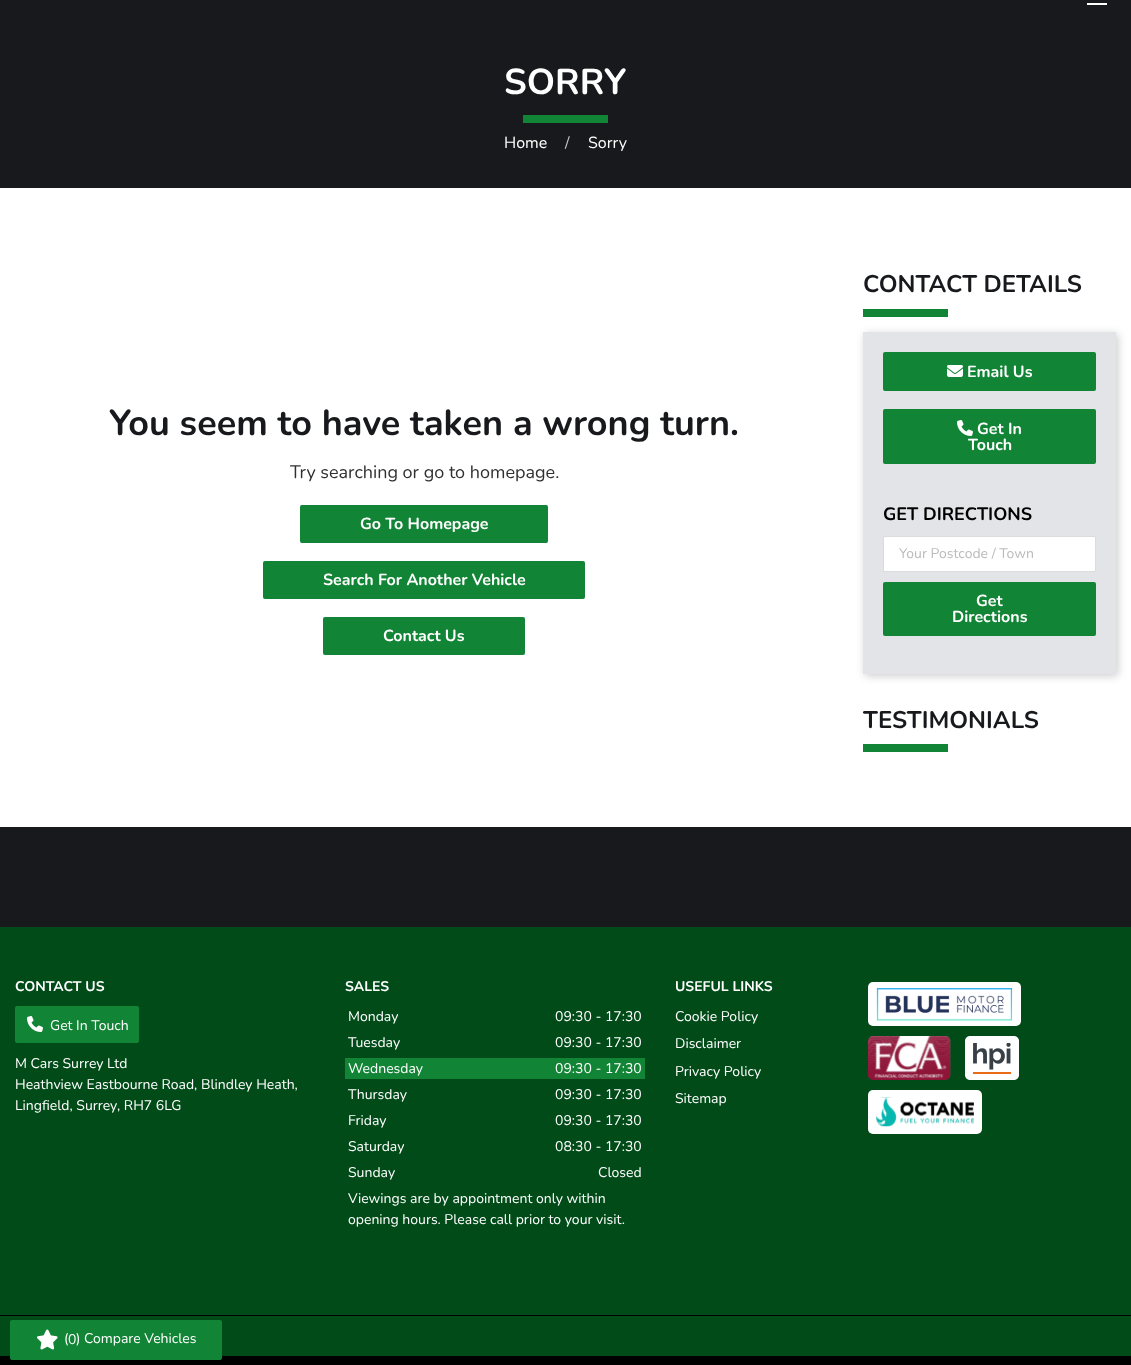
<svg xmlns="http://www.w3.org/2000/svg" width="1131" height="1365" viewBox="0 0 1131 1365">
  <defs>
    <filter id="blur1" x="-50%" y="-200%" width="200%" height="500%"><feGaussianBlur stdDeviation="4.5"/></filter>
  </defs>
  <rect width="100%" height="100%" fill="#ffffff"/>
  <rect x="0" y="0" width="1131" height="188" fill="#17191c"/>
  <text x="504" y="94" font-family="Nunito" font-size="36" font-weight="bold" fill="#ffffff">SORRY</text>
  <rect x="523" y="115" width="85" height="8" fill="#118435"/>
  <text x="504" y="148" font-family="Nunito" font-size="16" fill="#ffffff">Home</text>
  <text x="565" y="148" font-family="Nunito" font-size="16" fill="#cacaca">/</text>
  <text x="588" y="148" font-family="Nunito" font-size="16" fill="#ffffff">Sorry</text>
  <text x="109" y="435" font-family="Nunito" font-size="36" font-weight="bold" fill="#17191c">You seem to have taken a wrong turn.</text>
  <text x="290" y="478" font-family="Nunito" font-size="18" fill="#303030">Try searching or go to homepage.</text>
  <rect x="300" y="505" width="248" height="38" rx="2" fill="#118435"/>
  <text x="360" y="529" font-family="Nunito" font-size="16" font-weight="bold" fill="#ffffff">Go To Homepage</text>
  <rect x="263" y="561" width="322" height="38" rx="2" fill="#118435"/>
  <text x="323" y="585" font-family="Nunito" font-size="16" font-weight="bold" fill="#ffffff">Search For Another Vehicle</text>
  <rect x="323" y="617" width="202" height="38" rx="2" fill="#118435"/>
  <text x="383" y="641" font-family="Nunito" font-size="16" font-weight="bold" fill="#ffffff">Contact Us</text>
  <text x="863" y="292" font-family="Nunito" font-size="24" font-weight="bold" fill="#17191c">CONTACT DETAILS</text>
  <rect x="863" y="309" width="85" height="8" fill="#118435"/>
  <rect x="865" y="334" width="253" height="342" fill="#000000" fill-opacity="0.2" filter="url(#blur1)"/>
  <rect x="863" y="332" width="253" height="342" fill="#e2e4e7"/>
  <rect x="883" y="352" width="213" height="39" rx="2" fill="#118435"/>
  <image x="947" y="365" width="16" height="12" href="img1.png"/>
  <text x="967" y="377" font-family="Nunito" font-size="16" font-weight="bold" fill="#ffffff">Email Us</text>
  <rect x="883" y="409" width="213" height="55" rx="2" fill="#118435"/>
  <image x="957" y="420" width="16" height="16" href="img2.png"/>
  <text x="977" y="434" font-family="Nunito" font-size="16" font-weight="bold" fill="#ffffff">Get In</text>
  <text x="968" y="450" font-family="Nunito" font-size="16" font-weight="bold" fill="#ffffff">Touch</text>
  <text x="883" y="520" font-family="Nunito" font-size="18" font-weight="bold" fill="#000000">GET DIRECTIONS</text>
  <rect x="883.5" y="536.5" width="212" height="35" rx="1.5" fill="#ffffff" stroke="#dcdcdc"/>
  <text x="899" y="558" font-family="Nunito" font-size="14" fill="#bbbbbb">Your Postcode / Town</text>
  <rect x="883" y="582" width="213" height="54" rx="2" fill="#118435"/>
  <text x="976" y="606" font-family="Nunito" font-size="16" font-weight="bold" fill="#ffffff">Get</text>
  <text x="952" y="622" font-family="Nunito" font-size="16" font-weight="bold" fill="#ffffff">Directions</text>
  <text x="863" y="728" font-family="Nunito" font-size="24" font-weight="bold" fill="#17191c">TESTIMONIALS</text>
  <rect x="863" y="744" width="85" height="8" fill="#118435"/>
  <rect x="0" y="827" width="1131" height="100" fill="#17191c"/>
  <rect x="1087" y="3" width="20" height="2" fill="#ffffff"/>
  <rect x="0" y="927" width="1131" height="429" fill="#004b18"/>
  <rect x="0" y="1356" width="1131" height="9" fill="#000000"/>
  <rect x="10" y="1320" width="212" height="40" rx="2" fill="#118435"/>
  <image x="37" y="1329" width="21" height="21" href="img3.png"/>
  <text x="64" y="1343" font-family="Nunito" font-size="14" fill="#ffffff">(</text>
  <text x="68" y="1344" font-family="Nunito" font-size="14" fill="#ffffff">0</text>
  <text x="76" y="1343" font-family="Nunito" font-size="14" fill="#ffffff">) Compare Vehicles</text>
  <text x="15" y="991" font-family="Nunito" font-size="14" font-weight="bold" fill="#ffffff">CONTACT US</text>
  <rect x="15" y="1006" width="124" height="37" rx="2" fill="#118435"/>
  <image x="27" y="1016" width="16" height="16" href="img2.png"/>
  <text x="50" y="1030" font-family="Nunito" font-size="14" fill="#ffffff">Get In Touch</text>
  <text x="15" y="1068" font-family="Nunito" font-size="14" fill="#ffffff">M Cars Surrey Ltd</text>
  <text x="15" y="1089" font-family="Nunito" font-size="14" fill="#ffffff">Heathview Eastbourne Road, Blindley Heath,</text>
  <text x="15" y="1110" font-family="Nunito" font-size="14" fill="#ffffff">Lingfield, Surrey</text>
  <text x="117" y="1110" font-family="Nunito" font-size="14" fill="#ffffff">, RH7 6LG</text>
  <text x="345" y="991" font-family="Nunito" font-size="14" font-weight="bold" fill="#ffffff">SALES</text>
  <text x="348" y="1021" font-family="Nunito" font-size="14" fill="#ffffff">Monday</text>
  <text x="555" y="1021" font-family="Nunito" font-size="14" fill="#ffffff">09:30 - 17:30</text>
  <text x="348" y="1047" font-family="Nunito" font-size="14" fill="#ffffff">Tuesday</text>
  <text x="555" y="1047" font-family="Nunito" font-size="14" fill="#ffffff">09:30 - 17:30</text>
  <rect x="345" y="1058" width="300" height="21" fill="#118435"/>
  <text x="348" y="1073" font-family="Nunito" font-size="14" fill="#ffffff">Wednesday</text>
  <text x="555" y="1073" font-family="Nunito" font-size="14" fill="#ffffff">09:30 - 17:30</text>
  <text x="348" y="1099" font-family="Nunito" font-size="14" fill="#ffffff">Thursday</text>
  <text x="555" y="1099" font-family="Nunito" font-size="14" fill="#ffffff">09:30 - 17:30</text>
  <text x="348" y="1125" font-family="Nunito" font-size="14" fill="#ffffff">Friday</text>
  <text x="555" y="1125" font-family="Nunito" font-size="14" fill="#ffffff">09:30 - 17:30</text>
  <text x="348" y="1151" font-family="Nunito" font-size="14" fill="#ffffff">Saturday</text>
  <text x="555" y="1151" font-family="Nunito" font-size="14" fill="#ffffff">08:30 - 17:30</text>
  <text x="348" y="1177" font-family="Nunito" font-size="14" fill="#ffffff">Sunday</text>
  <text x="598" y="1177" font-family="Nunito" font-size="14" fill="#ffffff">Closed</text>
  <text x="348" y="1203" font-family="Nunito" font-size="14" fill="#ffffff">Viewings are by appointment only within</text>
  <text x="348" y="1224" font-family="Nunito" font-size="14" fill="#ffffff">opening hours. Please call prior to your visit.</text>
  <text x="675" y="991" font-family="Nunito" font-size="14" font-weight="bold" fill="#ffffff">USEFUL LINKS</text>
  <text x="675" y="1021" font-family="Nunito" font-size="14" fill="#ffffff">Cookie Policy</text>
  <text x="675" y="1048" font-family="Nunito" font-size="14" fill="#ffffff">Disclaimer</text>
  <text x="675" y="1076" font-family="Nunito" font-size="14" fill="#ffffff">Privacy Policy</text>
  <text x="675" y="1103" font-family="Nunito" font-size="14" fill="#ffffff">Sitemap</text>
  <image x="868" y="982" width="153" height="44" href="img4.png"/>
  <image x="868" y="1036" width="83" height="44" href="img5.png"/>
  <image x="965" y="1036" width="54" height="44" href="img6.png"/>
  <image x="868" y="1090" width="114" height="44" href="img7.png"/>
  <rect x="0" y="1315" width="1131" height="1" fill="#000000"/>
</svg>
